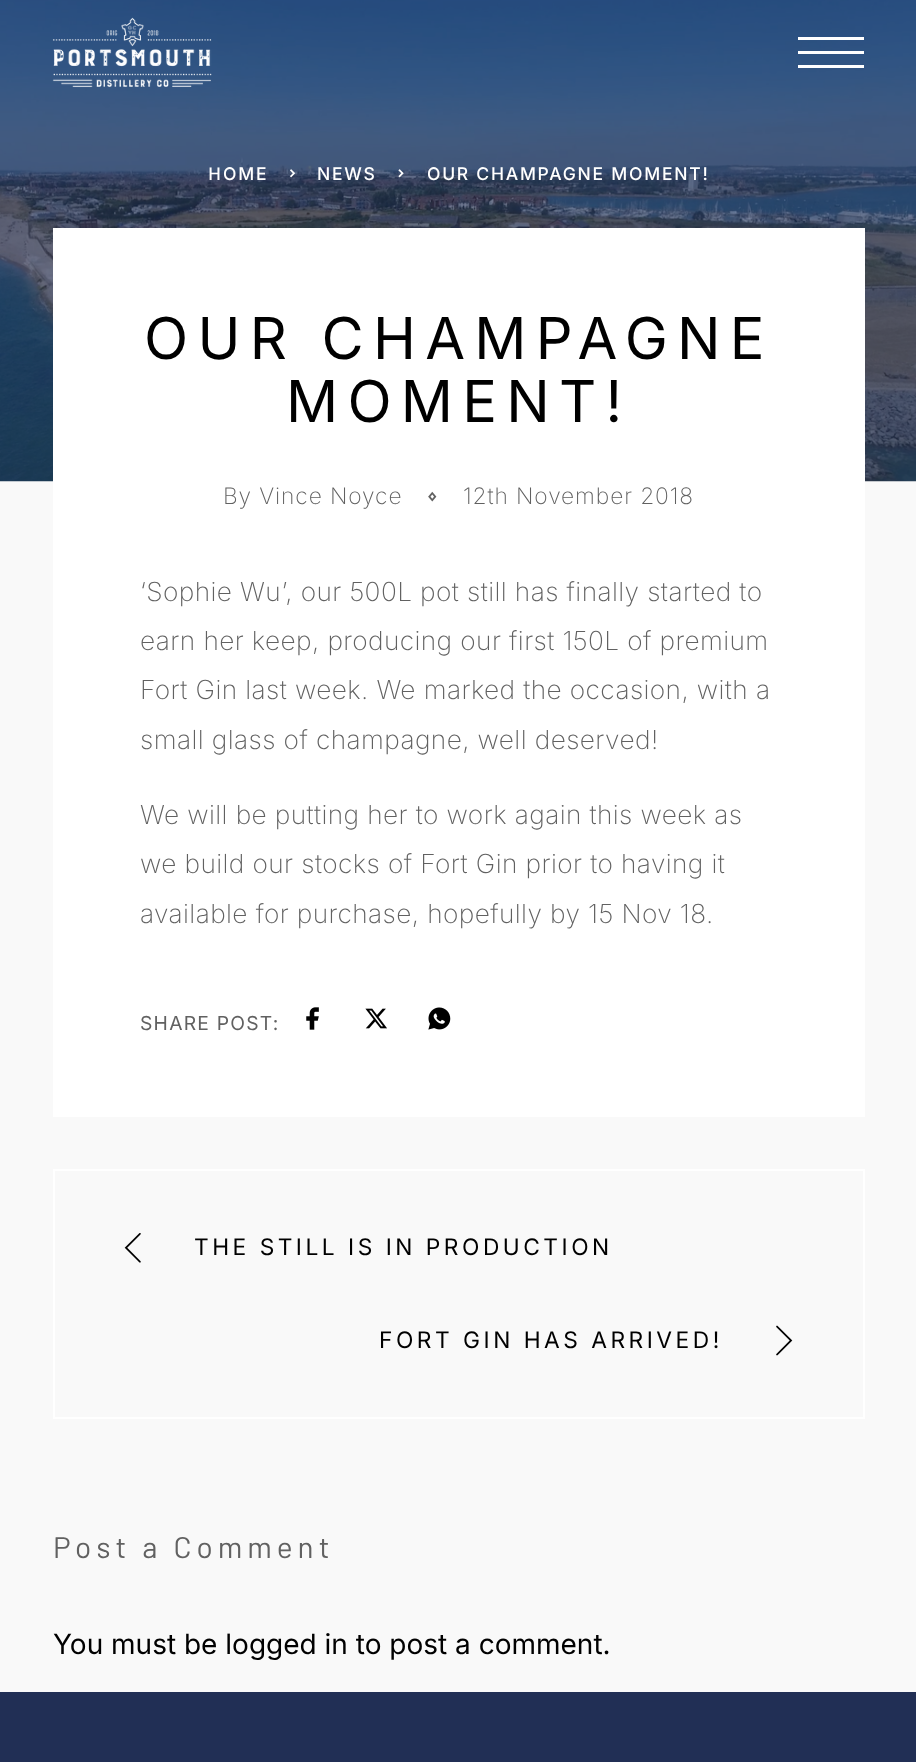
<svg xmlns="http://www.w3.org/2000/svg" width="916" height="1762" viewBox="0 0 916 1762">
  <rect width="100%" height="100%" fill="#f9f9f9"/>
  <image x="0" y="0" width="916" height="482" href="img2.png"/>
  <image x="52" y="17" width="160" height="71" href="img1.png"/>
  <path d="M864 65V68H798V65ZM864 51V54H798V51ZM864 37V40H798V37Z" fill="#ffffff"/>
  <text x="208" y="180" font-family="Noto Sans" font-size="17.5" font-weight="500" letter-spacing="1.75" fill="#ffffff">H</text>
  <text x="223" y="180" font-family="Inter" font-size="17.5" font-weight="500" letter-spacing="1.75" fill="#ffffff">OME</text>
  <image x="290" y="169" width="6" height="9" href="img3.png"/>
  <text x="317" y="180" font-family="Inter" font-size="17.5" font-weight="500" letter-spacing="1.75" fill="#ffffff">NEWS</text>
  <image x="398" y="169" width="6" height="9" href="img4.png"/>
  <text x="427" y="180" font-family="Inter" font-size="17.5" font-weight="500" letter-spacing="1.75" fill="#ffffff">OUR CHAMPAGNE MOMENT!</text>
  <rect x="53" y="228" width="812" height="889" fill="#ffffff"/>
  <text x="144" y="359" font-family="Inter" font-size="57.75" letter-spacing="9.25" fill="#000000">OUR CHAMPAGNE</text>
  <text x="286" y="422" font-family="Inter" font-size="57.75" letter-spacing="9.25" fill="#000000">MOMENT!</text>
  <text x="223" y="504" font-family="Inter" font-size="22.75" font-weight="200" letter-spacing="0.9" fill="#616161">By Vince Noyce</text>
  <image x="428" y="491" width="9" height="11" href="img5.png"/>
  <text x="463" y="504" font-family="Inter" font-size="22.75" font-weight="200" letter-spacing="0.9" fill="#616161">12th November 2018</text>
  <text x="140" y="601" font-family="Inter" font-size="26.25" font-weight="200" letter-spacing="0.4" fill="#616161">‘Sophie Wu’, our 500L pot still has finally started to</text>
  <text x="140" y="650" font-family="Inter" font-size="26.25" font-weight="200" letter-spacing="0.4" fill="#616161">earn her keep, producing our first 150L of premium</text>
  <text x="140" y="699" font-family="Inter" font-size="26.25" font-weight="200" letter-spacing="0.4" fill="#616161">Fort Gin last week. We marked the occasion, with a</text>
  <text x="140" y="749" font-family="Inter" font-size="26.25" font-weight="200" letter-spacing="0.4" fill="#616161">small glass of champagne, well deserved!</text>
  <text x="140" y="824" font-family="Inter" font-size="26.25" font-weight="200" letter-spacing="0.4" fill="#616161">We will be putting her to work again this week as</text>
  <text x="140" y="873" font-family="Inter" font-size="26.25" font-weight="200" letter-spacing="0.4" fill="#616161">we build our stocks of Fort Gin prior to having it</text>
  <text x="140" y="923" font-family="Inter" font-size="26.25" font-weight="200" letter-spacing="0.4" fill="#616161">available for purchase, hopefully by 15 Nov 18.</text>
  <text x="140" y="1030" font-family="Inter" font-size="19.25" letter-spacing="1.25" fill="#616161">SHARE POST:</text>
  <image x="306" y="1007" width="13" height="23" href="img6.png"/>
  <image x="365" y="1008" width="22" height="21" href="img7.png"/>
  <image x="428" y="1007" width="23" height="23" href="img8.png"/>
  <rect x="54" y="1170" width="810" height="248" fill="none" stroke="#ffffff" stroke-width="2"/>
  <image x="124" y="1233" width="17" height="30" href="img9.png"/>
  <text x="194" y="1255" font-family="Inter" font-size="22.75" letter-spacing="3.5" fill="#000000">THE STILL IS IN PRODUCTION</text>
  <text x="379" y="1348" font-family="Inter" font-size="22.75" letter-spacing="3.5" fill="#000000">FORT GIN HAS ARRIVED!</text>
  <image x="776" y="1325" width="17" height="31" href="img10.png"/>
  <text x="53" y="1558" font-family="Barlow" font-size="29.75" letter-spacing="5" fill="#616161">Post a Comment</text>
  <text x="53" y="1654" font-family="Inter" font-size="28" fill="#000000">You must be logged in to post a comment.</text>
  <rect x="0" y="1692" width="916" height="70" fill="#212f55"/>
</svg>
